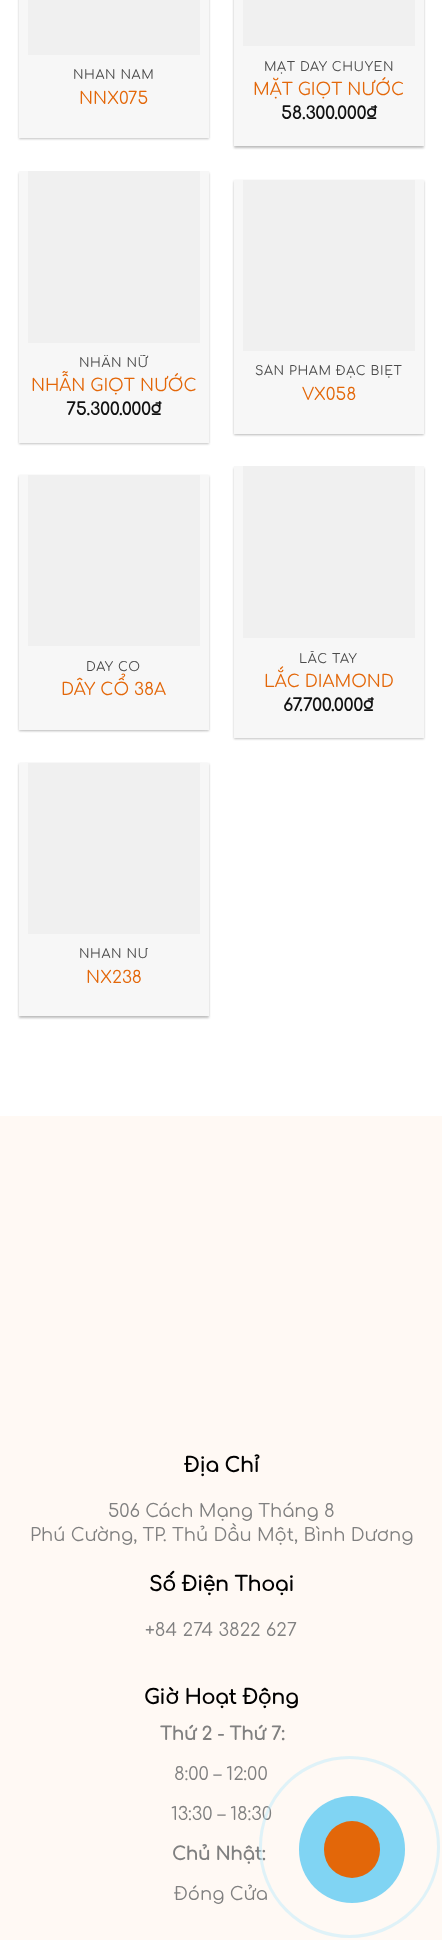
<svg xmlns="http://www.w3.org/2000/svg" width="442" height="1940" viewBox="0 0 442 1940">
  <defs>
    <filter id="blur1" x="-50%" y="-200%" width="200%" height="500%"><feGaussianBlur stdDeviation="1"/></filter>
    <clipPath id="clip1"><rect x="31" y="69" width="165" height="15"/></clipPath>
    <filter id="blur2" x="-50%" y="-200%" width="200%" height="500%"><feGaussianBlur stdDeviation="2"/></filter>
    <clipPath id="clip2"><rect x="246" y="60" width="165" height="15"/></clipPath>
    <clipPath id="clip3"><rect x="31" y="355" width="165" height="16"/></clipPath>
    <clipPath id="clip4"><rect x="246" y="364" width="165" height="15"/></clipPath>
    <clipPath id="clip5"><rect x="31" y="660" width="165" height="15"/></clipPath>
    <clipPath id="clip6"><rect x="246" y="651" width="165" height="15"/></clipPath>
    <clipPath id="clip7"><rect x="31" y="948" width="165" height="15"/></clipPath>
  </defs>
  <rect width="100%" height="100%" fill="#ffffff"/>
  <rect x="19" y="-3" width="190" height="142" fill="#000000" fill-opacity="0.24" filter="url(#blur1)"/>
  <rect x="19" y="0" width="190" height="138" fill="#f7f7f7"/>
  <rect x="28" y="0" width="172" height="55" fill="#f0f0f0"/>
  <g clip-path="url(#clip1)">
    <text x="73" y="79" font-family="Comfortaa" font-size="12.75" letter-spacing="0.6" fill="#4a4a4a">NHẪN NAM</text>
  </g>
  <text x="79" y="104" font-family="Comfortaa" font-size="17" fill="#e36709">NNX075</text>
  <rect x="234" y="-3" width="190" height="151" fill="#000000" fill-opacity="0.24" filter="url(#blur1)"/>
  <rect x="236" y="-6" width="185" height="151" fill="#000000" fill-opacity="0.12" filter="url(#blur2)"/>
  <rect x="234" y="0" width="190" height="146" fill="#f7f7f7"/>
  <rect x="243" y="0" width="172" height="46" fill="#f0f0f0"/>
  <g clip-path="url(#clip2)">
    <text x="264" y="71" font-family="Comfortaa" font-size="12.75" letter-spacing="0.6" fill="#4a4a4a">MẶT DÂY CHUYỀN</text>
  </g>
  <text x="253" y="95" font-family="Comfortaa" font-size="17" fill="#e36709">MẶT GIỌT NƯỚC</text>
  <text x="281" y="119" font-family="Comfortaa" font-size="17" font-weight="bold" fill="#111111">58.300.000₫</text>
  <rect x="19" y="173" width="190" height="271" fill="#000000" fill-opacity="0.24" filter="url(#blur1)"/>
  <rect x="19" y="171" width="190" height="272" fill="#f7f7f7"/>
  <rect x="28" y="171" width="172" height="172" fill="#f0f0f0"/>
  <g clip-path="url(#clip3)">
    <text x="79" y="367" font-family="Comfortaa" font-size="12.75" letter-spacing="0.6" fill="#4a4a4a">NHẪN NỮ</text>
  </g>
  <text x="31" y="391" font-family="Comfortaa" font-size="17" fill="#e36709">NHẪN GIỌT NƯỚC</text>
  <text x="66" y="415" font-family="Comfortaa" font-size="17" font-weight="bold" fill="#111111">75.300.000₫</text>
  <rect x="234" y="181" width="190" height="254" fill="#000000" fill-opacity="0.24" filter="url(#blur1)"/>
  <rect x="236" y="184" width="185" height="249" fill="#000000" fill-opacity="0.12" filter="url(#blur2)"/>
  <rect x="234" y="180" width="190" height="254" fill="#f7f7f7"/>
  <rect x="243" y="180" width="172" height="171" fill="#f0f0f0"/>
  <g clip-path="url(#clip4)">
    <text x="255" y="375" font-family="Comfortaa" font-size="12.75" letter-spacing="0.6" fill="#4a4a4a">SẢN PHẨM ĐẶC BIỆT</text>
  </g>
  <text x="302" y="400" font-family="Comfortaa" font-size="17" fill="#e36709">VX058</text>
  <rect x="19" y="476" width="190" height="255" fill="#000000" fill-opacity="0.24" filter="url(#blur1)"/>
  <rect x="21" y="479" width="185" height="250" fill="#000000" fill-opacity="0.12" filter="url(#blur2)"/>
  <rect x="19" y="475" width="190" height="255" fill="#f7f7f7"/>
  <rect x="28" y="475" width="172" height="171" fill="#f0f0f0"/>
  <g clip-path="url(#clip5)">
    <text x="86" y="671" font-family="Comfortaa" font-size="12.75" letter-spacing="0.6" fill="#4a4a4a">DÂY CỔ</text>
  </g>
  <text x="61" y="695" font-family="Comfortaa" font-size="17" fill="#e36709">DÂY CỔ 38A</text>
  <rect x="234" y="468" width="190" height="271" fill="#000000" fill-opacity="0.24" filter="url(#blur1)"/>
  <rect x="234" y="466" width="190" height="272" fill="#f7f7f7"/>
  <rect x="243" y="466" width="172" height="172" fill="#f0f0f0"/>
  <g clip-path="url(#clip6)">
    <text x="299" y="663" font-family="Comfortaa" font-size="12.75" letter-spacing="0.6" fill="#4a4a4a">LẮC TAY</text>
  </g>
  <text x="264" y="687" font-family="Comfortaa" font-size="17" fill="#e36709">LẮC DIAMOND</text>
  <text x="283" y="711" font-family="Comfortaa" font-size="17" font-weight="bold" fill="#111111">67.700.000₫</text>
  <rect x="19" y="764" width="190" height="254" fill="#000000" fill-opacity="0.24" filter="url(#blur1)"/>
  <rect x="21" y="766" width="185" height="249" fill="#000000" fill-opacity="0.12" filter="url(#blur2)"/>
  <rect x="19" y="763" width="190" height="253" fill="#f7f7f7"/>
  <rect x="28" y="763" width="172" height="171" fill="#f0f0f0"/>
  <g clip-path="url(#clip7)">
    <text x="79" y="958" font-family="Comfortaa" font-size="12.75" letter-spacing="0.6" fill="#4a4a4a">NHẪN NỮ</text>
  </g>
  <text x="86" y="983" font-family="Comfortaa" font-size="17" fill="#e36709">NX238</text>
  <rect x="0" y="1116" width="442" height="824" fill="#fff9f4"/>
  <text x="184" y="1472" font-family="Comfortaa" font-size="20" font-weight="bold" fill="#000000">Địa Chỉ</text>
  <text x="108" y="1517" font-family="Comfortaa" font-size="18" fill="#808080">506 Cách Mạng Tháng 8</text>
  <text x="30" y="1541" font-family="Comfortaa" font-size="18" fill="#808080">Phú Cường, TP. Thủ Dầu Một, Bình Dương</text>
  <text x="149" y="1591" font-family="Comfortaa" font-size="20" font-weight="bold" fill="#000000">Số Điện Thoại</text>
  <text x="145" y="1636" font-family="Comfortaa" font-size="18" fill="#808080">+84 274 3822 627</text>
  <text x="144" y="1704" font-family="Comfortaa" font-size="20" font-weight="bold" fill="#000000">Giờ Hoạt Động</text>
  <text x="160" y="1740" font-family="Comfortaa" font-size="18" font-weight="bold" fill="#808080">Thứ 2 - Thứ 7:</text>
  <text x="174" y="1780" font-family="Comfortaa" font-size="18" fill="#808080">8:00 – 12:00</text>
  <text x="171" y="1820" font-family="Comfortaa" font-size="18" fill="#808080">13:30 – 18:30</text>
  <text x="172" y="1860" font-family="Comfortaa" font-size="18" font-weight="bold" fill="#808080">Chủ Nhật:</text>
  <text x="174" y="1900" font-family="Comfortaa" font-size="18" fill="#808080">Đóng Cửa</text>
  <rect x="260.5" y="1757.5" width="178" height="179" rx="89" fill="none" stroke="#bfebfc" stroke-opacity="0.5" stroke-width="3"/>
  <rect x="299" y="1796" width="106" height="107" rx="53" fill="#80d4f3"/>
  <rect x="324" y="1821" width="56" height="57" rx="28" fill="#e36709"/>
</svg>
